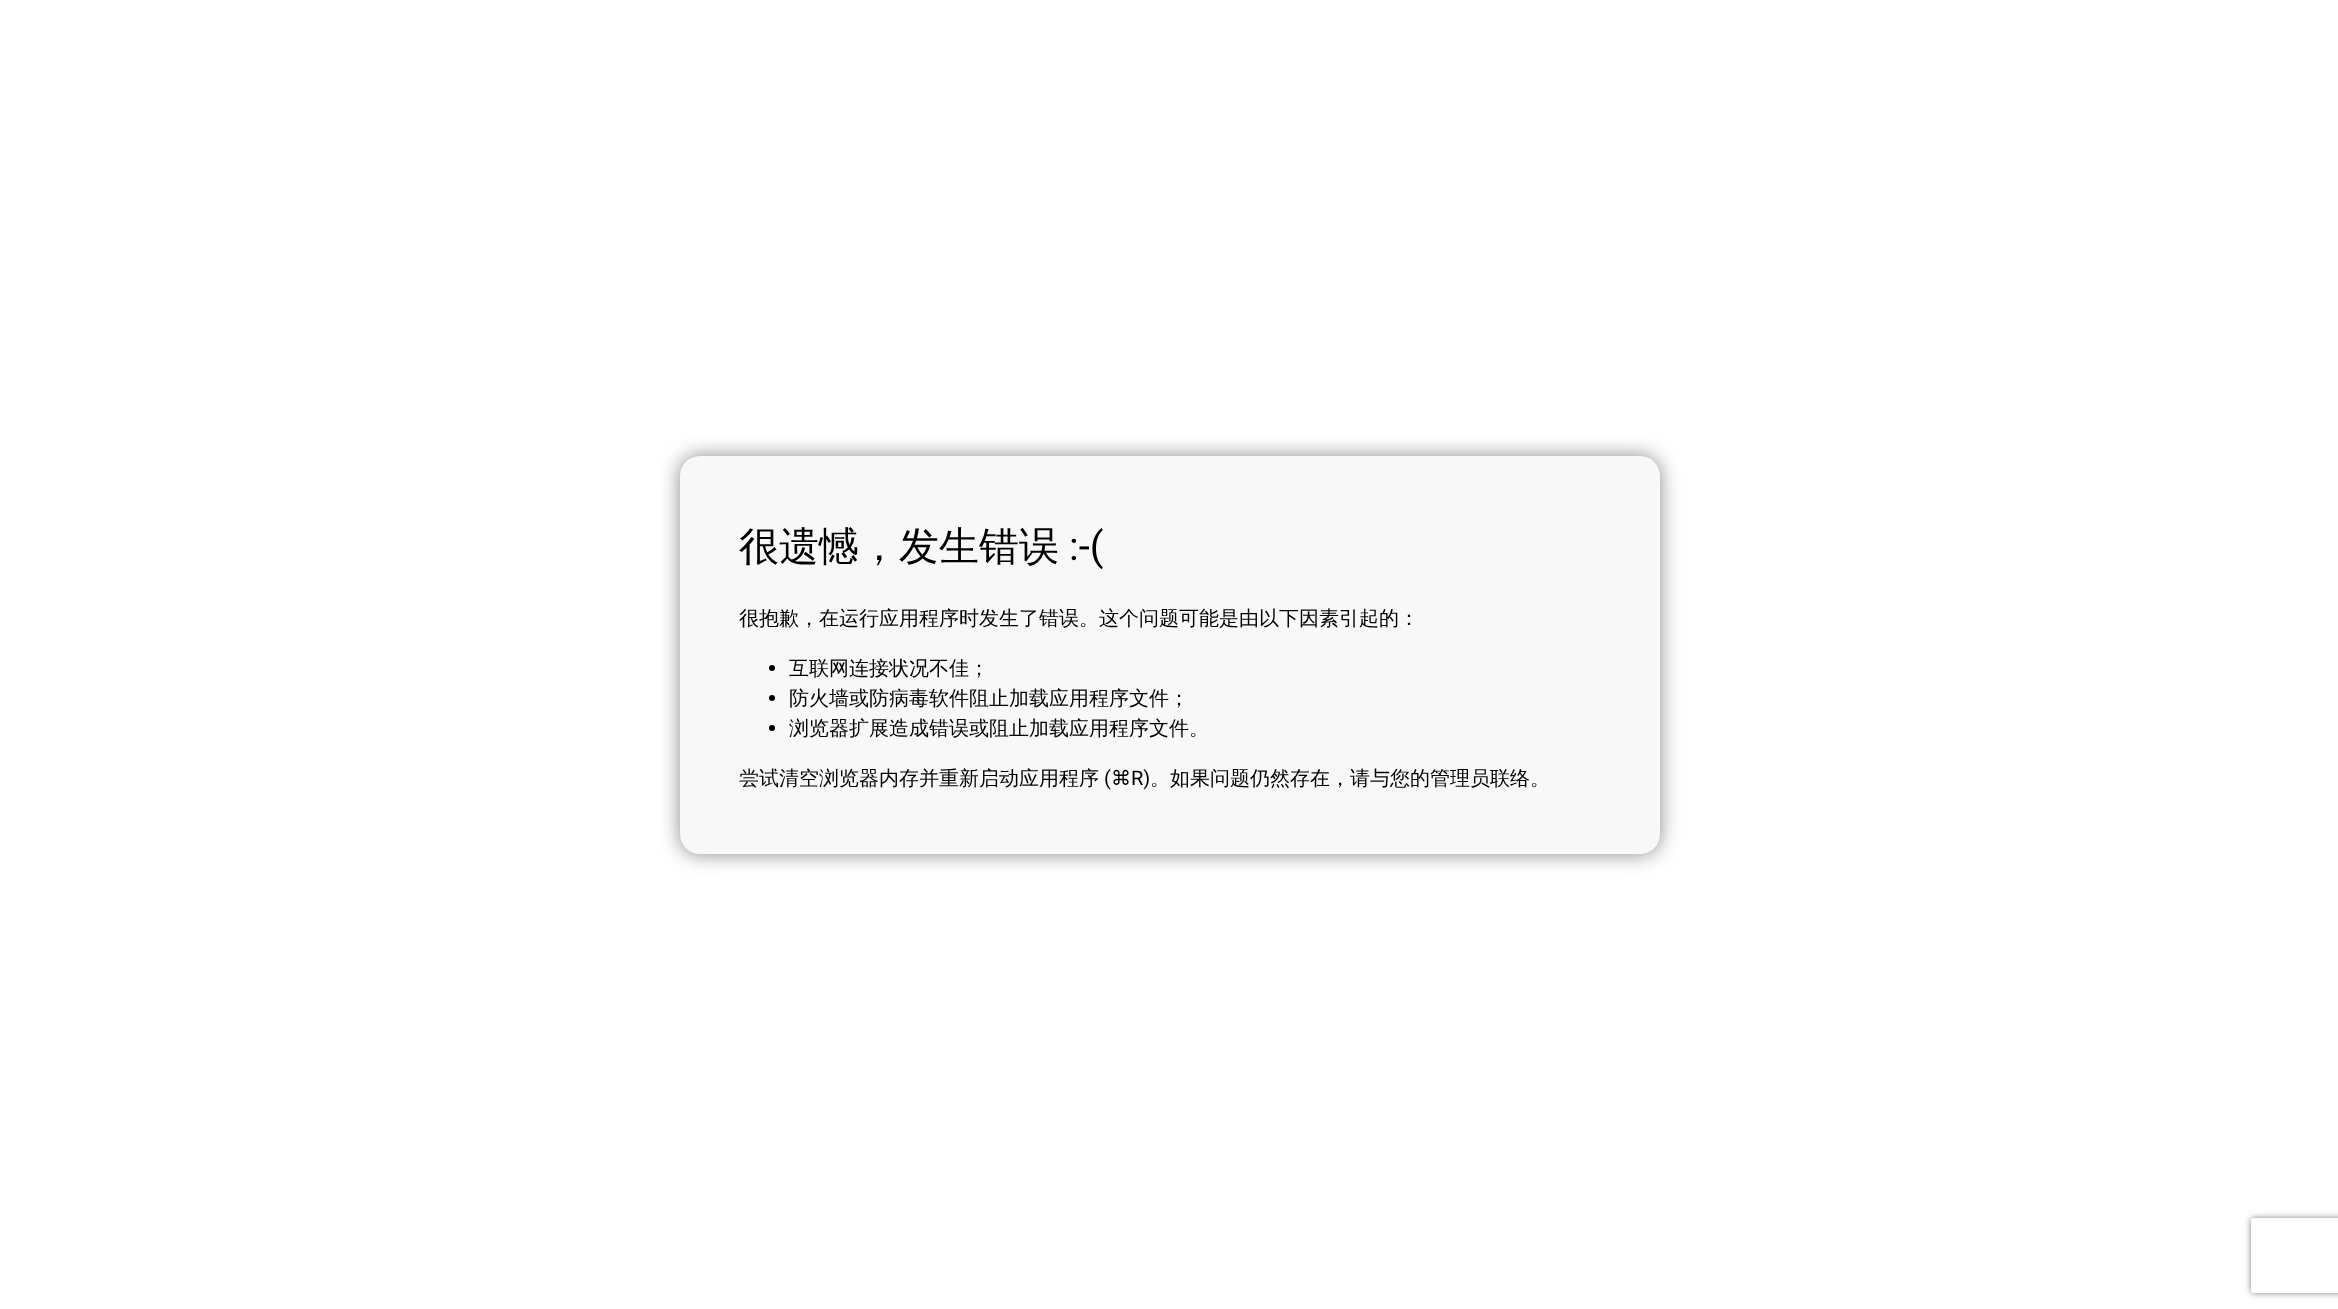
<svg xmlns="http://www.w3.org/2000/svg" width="2338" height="1309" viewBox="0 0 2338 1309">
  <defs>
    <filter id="blur1" x="-50%" y="-200%" width="200%" height="500%"><feGaussianBlur stdDeviation="10"/></filter>
    <clipPath id="clip1"><path d="M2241 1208H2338V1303H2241ZM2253.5 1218H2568.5C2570 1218 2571 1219 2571 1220.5V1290.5C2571 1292 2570 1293 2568.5 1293H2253.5C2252 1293 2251 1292 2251 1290.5V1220.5C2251 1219 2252 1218 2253.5 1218Z" clip-rule="evenodd"/></clipPath>
    <filter id="blur2" x="-50%" y="-200%" width="200%" height="500%"><feGaussianBlur stdDeviation="3"/></filter>
  </defs>
  <rect width="100%" height="100%" fill="#ffffff"/>
  <rect x="680" y="456" width="980" height="398" rx="20" fill="#888888" filter="url(#blur1)"/>
  <rect x="680" y="456" width="980" height="398" rx="20" fill="#f8f8f8"/>
  <text x="739" y="560" font-family="WenQuanYi Zen Hei" font-size="40" font-weight="500" fill="#000000">很遗憾，发生错误</text>
  <text x="1069" y="560" font-family="Roboto" font-size="40" fill="#000000">:-(</text>
  <text x="739" y="625" font-family="WenQuanYi Zen Hei" font-size="20" font-weight="500" fill="#000000">很抱歉，在运行应用程序时发生了错误。这个问题可能是由以下因素引起的：</text>
  <circle cx="772" cy="668" r="3" fill="#000000"/>
  <text x="789" y="675" font-family="WenQuanYi Zen Hei" font-size="20" font-weight="500" fill="#000000">互联网连接状况不佳；</text>
  <circle cx="772" cy="698" r="3" fill="#000000"/>
  <text x="789" y="705" font-family="WenQuanYi Zen Hei" font-size="20" font-weight="500" fill="#000000">防火墙或防病毒软件阻止加载应用程序文件；</text>
  <circle cx="772" cy="728" r="3" fill="#000000"/>
  <text x="789" y="735" font-family="WenQuanYi Zen Hei" font-size="20" font-weight="500" fill="#000000">浏览器扩展造成错误或阻止加载应用程序文件。</text>
  <text x="739" y="785" font-family="WenQuanYi Zen Hei" font-size="20" font-weight="500" fill="#000000">尝试清空浏览器内存并重新启动应用程序</text>
  <text x="1104" y="785" font-family="Roboto" font-size="20" fill="#000000">(</text>
  <text x="1111" y="785" font-family="DejaVu Sans" font-size="20" fill="#000000">⌘</text>
  <text x="1131" y="785" font-family="Roboto" font-size="20" fill="#000000">R)</text>
  <text x="1150" y="785" font-family="WenQuanYi Zen Hei" font-size="20" font-weight="500" fill="#000000">。如果问题仍然存在，请与您的管理员联络。</text>
  <g clip-path="url(#clip1)">
    <rect x="2251" y="1218" width="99" height="75" rx="2.5" fill="#808080" filter="url(#blur2)"/>
  </g>
</svg>
